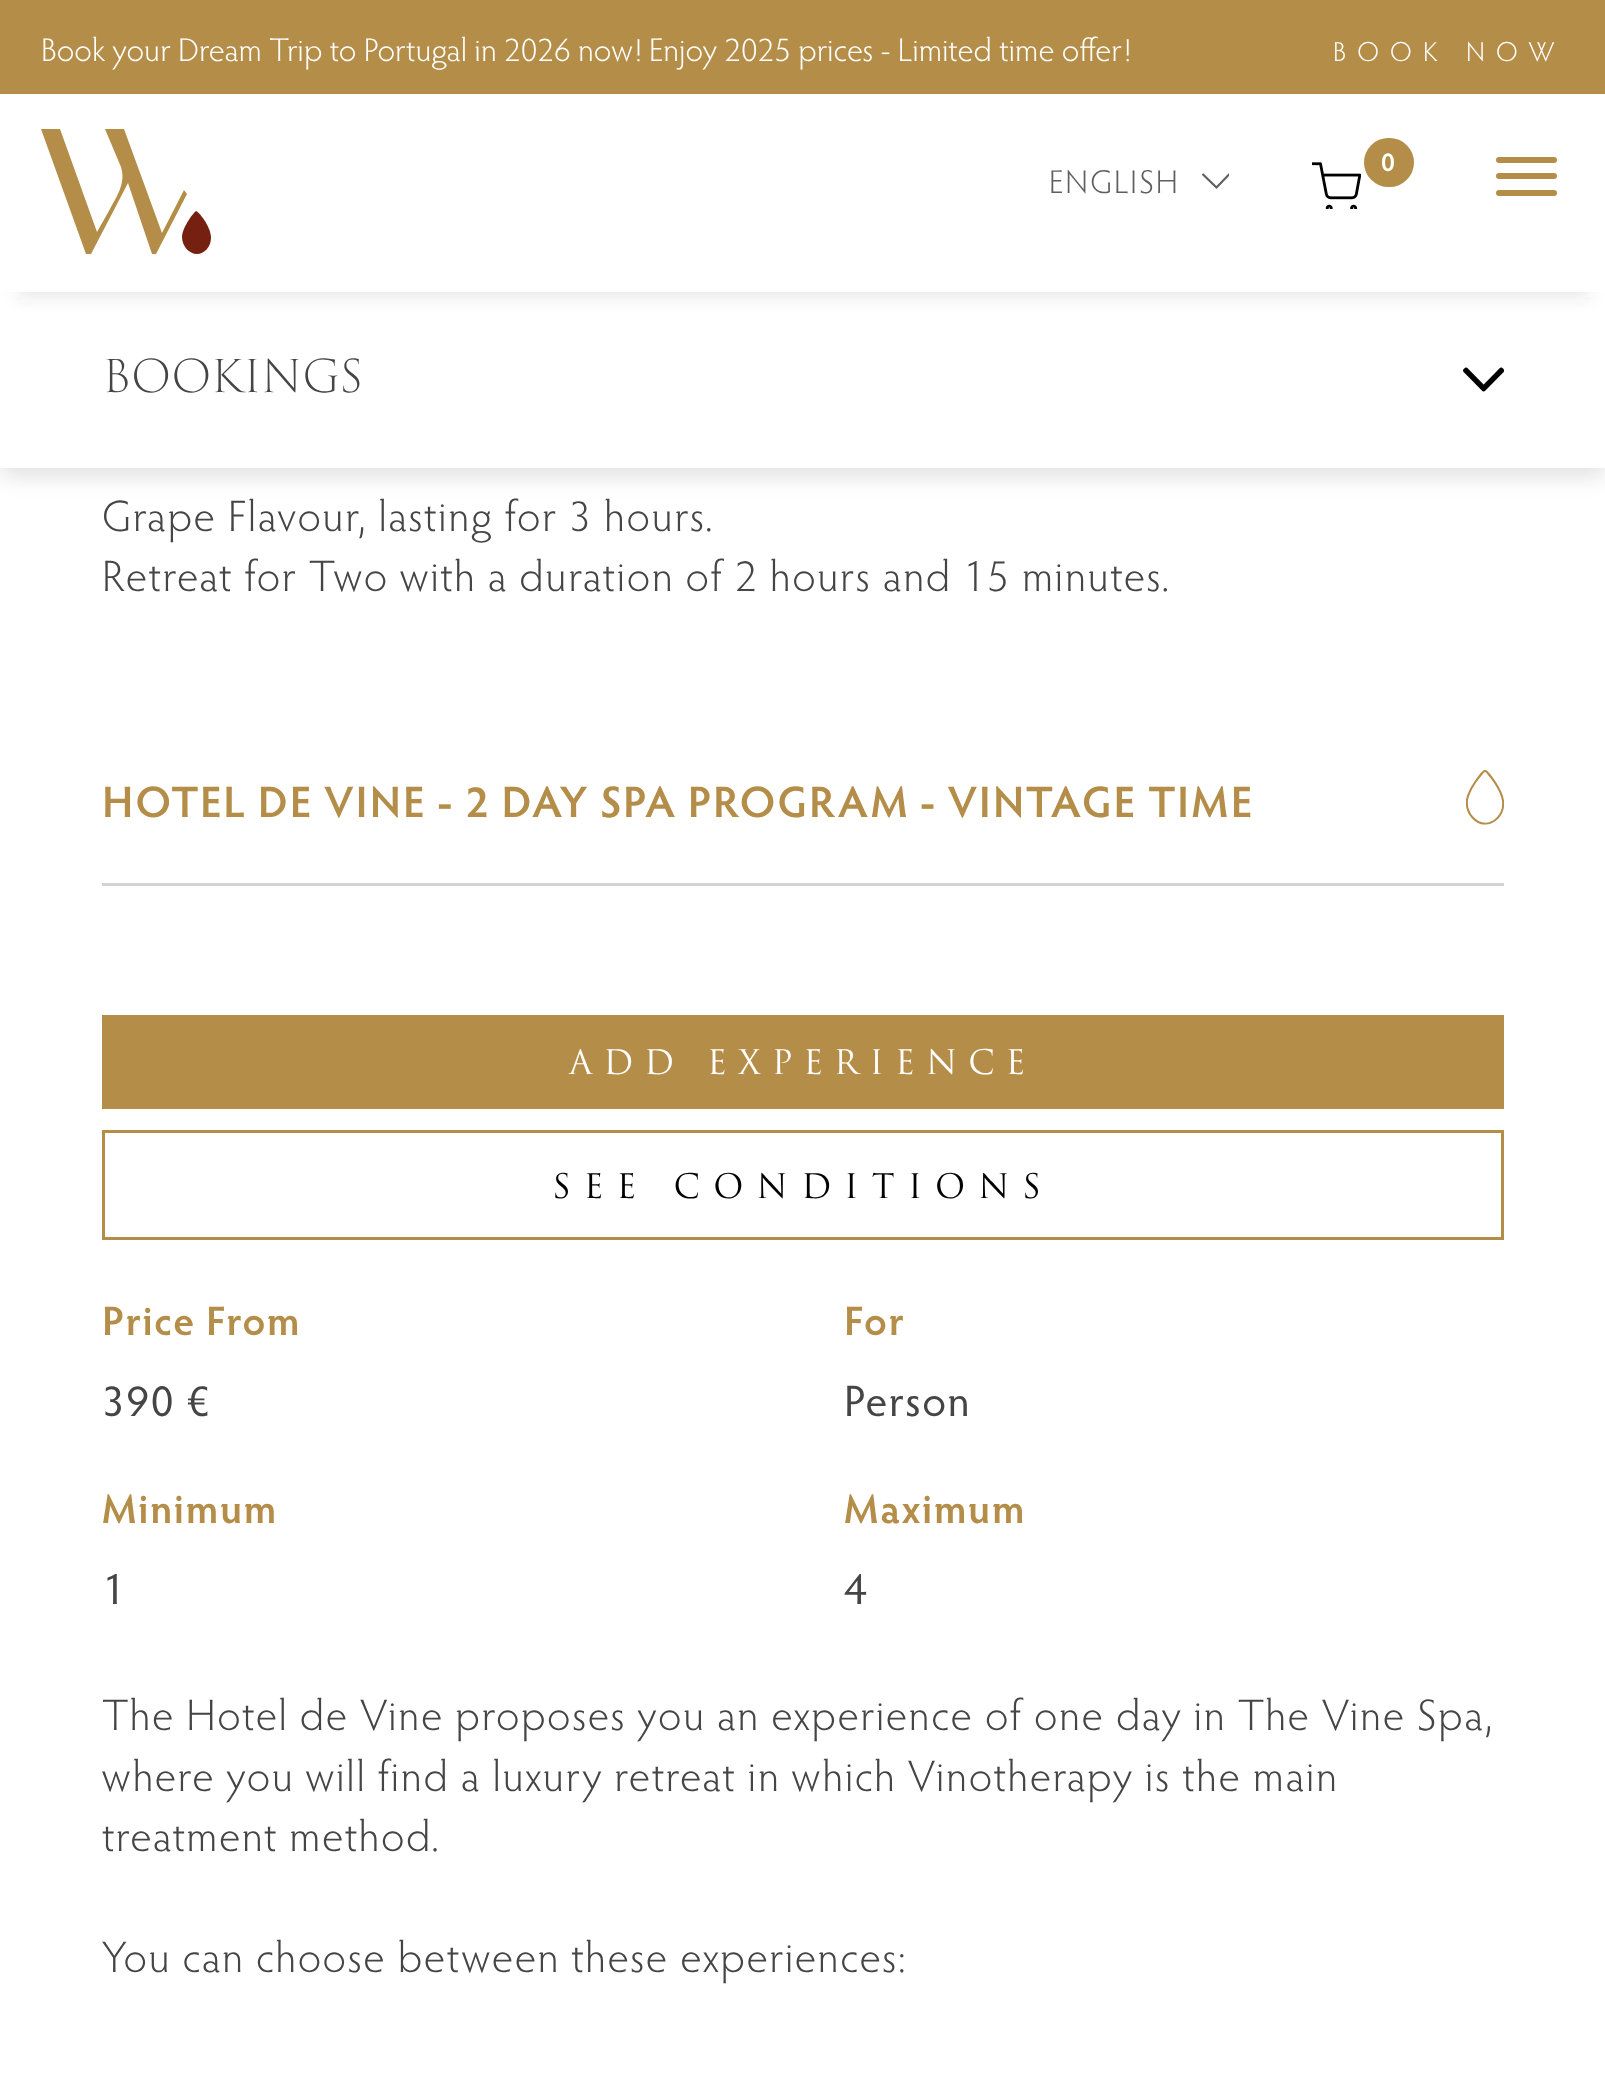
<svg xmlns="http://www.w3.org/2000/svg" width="1605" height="2083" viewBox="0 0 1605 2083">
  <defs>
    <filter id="blur1" x="-50%" y="-200%" width="200%" height="500%"><feGaussianBlur stdDeviation="11"/></filter>
    <filter id="blur2" x="-50%" y="-200%" width="200%" height="500%"><feGaussianBlur stdDeviation="8"/></filter>
    <clipPath id="clip1"><rect x="1202" y="173" width="27" height="17"/></clipPath>
  </defs>
  <rect width="100%" height="100%" fill="#ffffff"/>
  <rect x="0" y="300" width="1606" height="176" fill="#000000" fill-opacity="0.12" filter="url(#blur1)"/>
  <rect x="0" y="292" width="1605" height="176" fill="#ffffff"/>
  <rect x="17" y="39" width="1573" height="258" fill="#444444" fill-opacity="0.12" filter="url(#blur2)"/>
  <rect x="0" y="94" width="1605" height="198" fill="#ffffff"/>
  <rect x="0" y="0" width="1605" height="94" fill="#b48d48"/>
  <text x="41" y="61" font-family="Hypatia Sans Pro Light" font-size="33" font-weight="300" fill="#ffffff">Book your Dream Trip to Portugal in 2026 now! Enjoy 2025 prices - Limited time offer!</text>
  <text x="1333" y="61" font-family="Hypatia Sans Pro Light" font-size="27.5" font-weight="300" letter-spacing="11" fill="#ffffff">BOOK NOW</text>
  <path d="M105 129L121 167C126 183 117 196 110 209L97 232L60 129H41L86 254H91L128 183L152 254H156L187 194L184 190L162 233L124 129" fill="#b48d48"/>
  <path d="M211 238C211 247 204 254 197 254C189 254 182 246 182 237C182 227 195 211 196 211C198 211 211 226 211 238Z" fill="#752010"/>
  <image x="1312" y="162" width="49" height="47" href="img1.png"/>
  <rect x="1364" y="138" width="50" height="49" rx="24.5" fill="#b48d48"/>
  <text x="1381" y="171" font-family="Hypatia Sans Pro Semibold" font-size="26" font-weight="600" letter-spacing="2" fill="#ffffff">0</text>
  <text x="1049" y="193" font-family="Hypatia Sans Pro Light" font-size="33" font-weight="300" letter-spacing="2" fill="#5f5f5f">ENGLISH</text>
  <g clip-path="url(#clip1)">
    <path d="M1202.5 174L1216.5 187.5L1229.5 174" fill="none" stroke="#5f5f5f" stroke-width="2.2"/>
  </g>
  <rect x="1496" y="173" width="61" height="6" rx="3" fill="#b48d48"/>
  <rect x="1496" y="157" width="61" height="6" rx="3" fill="#b48d48"/>
  <rect x="1496" y="190" width="61" height="6" rx="3" fill="#b48d48"/>
  <text x="102" y="392" font-family="'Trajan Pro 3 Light'" font-size="44" font-weight="300" fill="#454545">BOOKINGS</text>
  <image x="1463" y="367" width="41" height="25" href="img2.png"/>
  <text x="102" y="531" font-family="Hypatia Sans Pro Light" font-size="44" font-weight="300" letter-spacing="1.55" fill="#454545">Grape Flavour, lasting for 3 hours.</text>
  <text x="102" y="591" font-family="Hypatia Sans Pro Light" font-size="44" font-weight="300" letter-spacing="1.55" fill="#454545">Retreat for Two with a duration of 2 hours and 15 minutes.</text>
  <rect x="102" y="883" width="1402" height="3" fill="#d3d3d3"/>
  <text x="102" y="817" font-family="Hypatia Sans Pro Semibold" font-size="44" font-weight="600" letter-spacing="1.75" fill="#b48d48">HOTEL DE VINE - 2 DAY SPA PROGRAM - VINTAGE TIME</text>
  <image x="1466" y="770" width="38" height="55" href="img3.png"/>
  <rect x="102" y="1015" width="1402" height="94" fill="#b48d48"/>
  <text x="569" y="1074" font-family="'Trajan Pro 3'" font-size="33" letter-spacing="11" fill="#ffffff">ADD EXPERIENCE</text>
  <rect x="103.5" y="1131.5" width="1399" height="107" fill="none" stroke="#b48d48" stroke-width="3"/>
  <text x="552" y="1198" font-family="'Trajan Pro 3'" font-size="33" letter-spacing="13.25" fill="#000000">SEE CONDITIONS</text>
  <text x="102" y="1335" font-family="Hypatia Sans Pro Semibold" font-size="41.25" font-weight="600" letter-spacing="1.55" fill="#b48d48">Price From</text>
  <text x="102" y="1416" font-family="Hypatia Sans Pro" font-size="44" letter-spacing="1.55" fill="#454545">390 €</text>
  <text x="844" y="1335" font-family="Hypatia Sans Pro Semibold" font-size="41.25" font-weight="600" letter-spacing="1.55" fill="#b48d48">For</text>
  <text x="844" y="1416" font-family="Hypatia Sans Pro" font-size="44" letter-spacing="1.55" fill="#454545">Person</text>
  <text x="102" y="1523" font-family="Hypatia Sans Pro Semibold" font-size="41.25" font-weight="600" letter-spacing="1.55" fill="#b48d48">Minimum</text>
  <text x="102" y="1604" font-family="Hypatia Sans Pro" font-size="44" letter-spacing="1.55" fill="#454545">1</text>
  <text x="844" y="1523" font-family="Hypatia Sans Pro Semibold" font-size="41.25" font-weight="600" letter-spacing="1.55" fill="#b48d48">Maximum</text>
  <text x="844" y="1604" font-family="Hypatia Sans Pro" font-size="44" letter-spacing="1.55" fill="#454545">4</text>
  <text x="102" y="1730" font-family="Hypatia Sans Pro Light" font-size="44" font-weight="300" letter-spacing="1.55" fill="#454545">The Hotel de Vine proposes you an experience of one day in The Vine Spa,</text>
  <text x="102" y="1791" font-family="Hypatia Sans Pro Light" font-size="44" font-weight="300" letter-spacing="1.55" fill="#454545">where you will find a luxury retreat in which Vinotherapy is the main</text>
  <text x="102" y="1851" font-family="Hypatia Sans Pro Light" font-size="44" font-weight="300" letter-spacing="1.55" fill="#454545">treatment method.</text>
  <text x="102" y="1972" font-family="Hypatia Sans Pro Light" font-size="44" font-weight="300" letter-spacing="1.55" fill="#454545">You can choose between these experiences:</text>
</svg>
